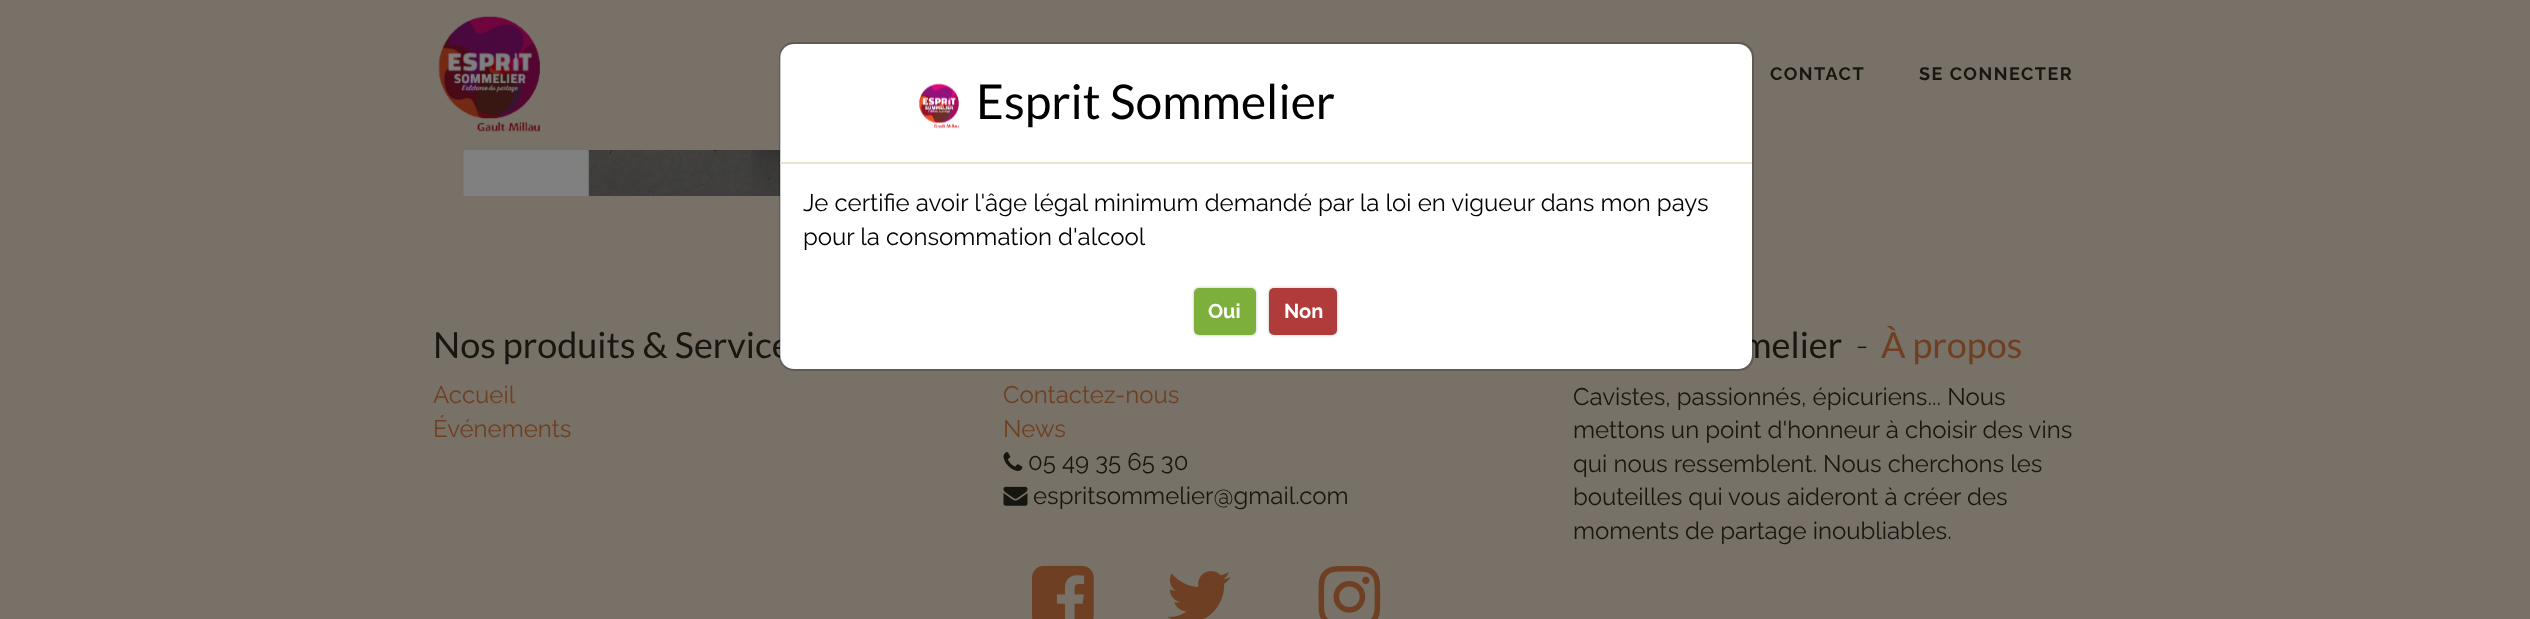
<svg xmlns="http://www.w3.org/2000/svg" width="2530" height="619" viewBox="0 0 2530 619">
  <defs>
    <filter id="blur1" x="-50%" y="-200%" width="200%" height="500%"><feGaussianBlur stdDeviation="1.5"/></filter>
  </defs>
  <rect width="100%" height="100%" fill="#777167"/>
  <image x="438" y="16" width="102" height="116" href="img1.png"/>
  <text x="1770" y="80" font-family="Raleway" font-size="18" font-weight="bold" letter-spacing="1.5" fill="#171611">CONTACT</text>
  <text x="1919" y="80" font-family="Raleway" font-size="18" font-weight="bold" letter-spacing="1.5" fill="#171611">SE CONNECTER</text>
  <image x="463" y="150" width="317" height="46" href="img2.png"/>
  <text x="433" y="358" font-family="Lato" font-size="36" fill="#171611">Nos produits &amp; Service</text>
  <text x="1742" y="358" font-family="Lato" font-size="36" fill="#171611">melier</text>
  <rect x="780" y="44" width="972" height="325" rx="14" fill="#ffffff"/>
  <rect x="780" y="43" width="973" height="327" rx="14" fill="none" stroke="#000000" stroke-opacity="0.2" stroke-width="2"/>
  <rect x="780" y="162" width="972" height="2" fill="#eee2cf"/>
  <image x="919" y="83" width="40" height="46" href="img3.png"/>
  <text x="976" y="119" font-family="Lato" font-size="48" fill="#000000">Esprit Sommelier</text>
  <text x="803" y="211" font-family="Raleway" font-size="24" fill="#000000">Je certifie avoir l'âge légal minimum demandé par la loi en vigueur dans mon pays</text>
  <text x="803" y="245" font-family="Raleway" font-size="24" fill="#000000">pour la consommation d'alcool</text>
  <rect x="1194" y="288" width="62" height="47" rx="5" fill="#000000" fill-opacity="0.25" filter="url(#blur1)"/>
  <rect x="1194" y="288" width="62" height="47" rx="5" fill="#7daf3b"/>
  <text x="1208" y="318" font-family="Raleway" font-size="20" font-weight="bold" fill="#ffffff">Oui</text>
  <rect x="1269" y="288" width="68" height="47" rx="5" fill="#000000" fill-opacity="0.25" filter="url(#blur1)"/>
  <rect x="1269" y="288" width="68" height="47" rx="5" fill="#af3b3b"/>
  <text x="1284" y="318" font-family="Raleway" font-size="20" font-weight="bold" fill="#ffffff">Non</text>
  <text x="433" y="403" font-family="Raleway" font-size="24" fill="#6f3f22">Accueil</text>
  <text x="433" y="437" font-family="Raleway" font-size="24" fill="#6f3f22">Événements</text>
  <text x="1003" y="403" font-family="Raleway" font-size="24" fill="#6f3f22">Contactez-nous</text>
  <text x="1003" y="437" font-family="Raleway" font-size="24" fill="#6f3f22">News</text>
  <image x="1003" y="452" width="20" height="19" href="img4.png"/>
  <text x="1028" y="470" font-family="Raleway" font-size="24" fill="#171611">05 49 35 65 30</text>
  <image x="1003" y="486" width="25" height="20" href="img5.png"/>
  <text x="1033" y="504" font-family="Raleway" font-size="24" fill="#171611">espritsommelier@gmail.com</text>
  <image x="1032" y="565" width="62" height="54" href="img6.png"/>
  <image x="1167" y="571" width="64" height="48" href="img7.png"/>
  <image x="1318" y="565" width="63" height="54" href="img8.png"/>
  <text x="1856" y="358" font-family="Lato" font-size="36" font-weight="300" fill="#171611">-</text>
  <text x="1881" y="358" font-family="Lato" font-size="36" fill="#6f3f22">À propos</text>
  <text x="1573" y="405" font-family="Raleway" font-size="24" fill="#171611">Cavistes, passionnés, épicuriens... Nous</text>
  <text x="1573" y="438" font-family="Raleway" font-size="24" fill="#171611">mettons un point d'honneur à choisir des vins</text>
  <text x="1573" y="472" font-family="Raleway" font-size="24" fill="#171611">qui nous ressemblent. Nous cherchons les</text>
  <text x="1573" y="505" font-family="Raleway" font-size="24" fill="#171611">bouteilles qui vous aideront à créer des</text>
  <text x="1573" y="539" font-family="Raleway" font-size="24" fill="#171611">moments de partage inoubliables.</text>
</svg>
